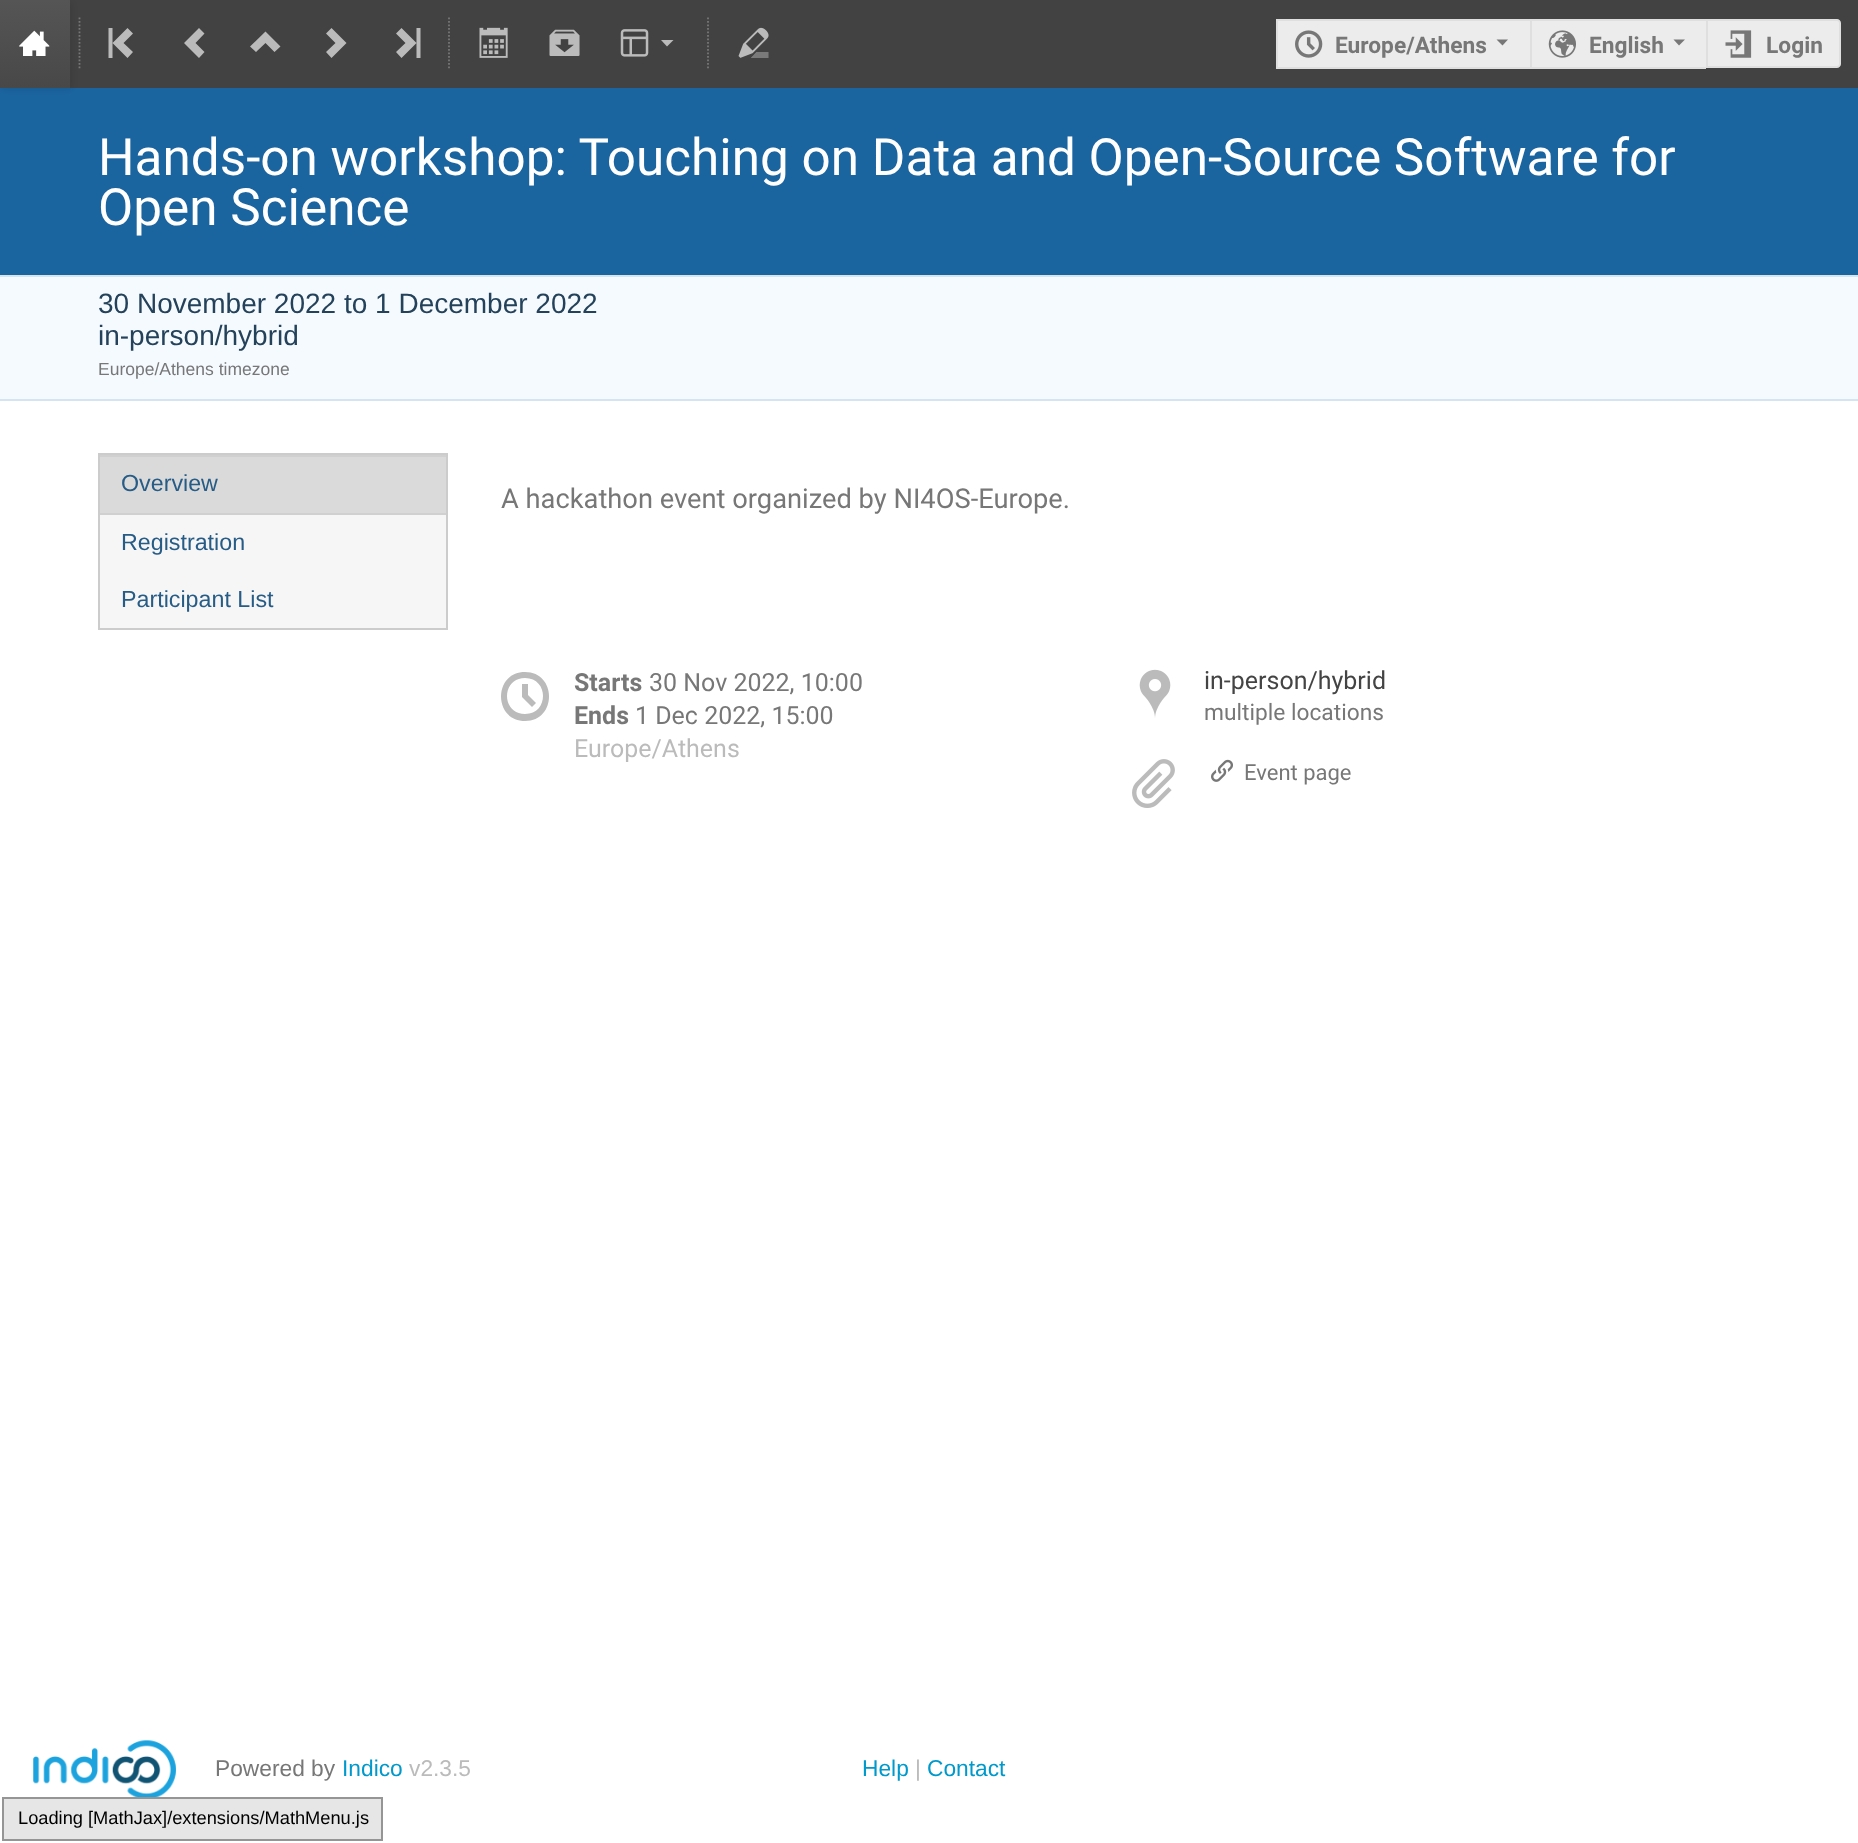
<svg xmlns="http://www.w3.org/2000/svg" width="1858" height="1843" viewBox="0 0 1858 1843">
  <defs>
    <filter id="blur1" x="-50%" y="-200%" width="200%" height="500%"><feGaussianBlur stdDeviation="3.5"/></filter>
    <linearGradient id="g1" gradientUnits="userSpaceOnUse" x1="35" y1="0" x2="35" y2="88"><stop offset="0" stop-color="#555555"/><stop offset="1" stop-color="#484848"/></linearGradient>
  </defs>
  <rect width="100%" height="100%" fill="#ffffff"/>
  <rect x="70" y="0" width="1788" height="88" fill="#424242"/>
  <rect x="0" y="88" width="1858" height="187" fill="#1a64a0"/>
  <rect x="2" y="2" width="70" height="87" fill="#141414" fill-opacity="0.1" filter="url(#blur1)"/>
  <rect x="0" y="0" width="70" height="88" fill="url(#g1)"/>
  <image x="19" y="30" width="31" height="26" href="img1.png"/>
  <path d="M79.5 17.5V70" fill="none" stroke="#777777" stroke-width="1.8" stroke-dasharray="1.75 1.75"/>
  <path d="M133 33.5L127.5 28L112.5 43L127.5 58L133 52L123.5 43ZM108.5 28V58H112.5V28Z" fill="#bbbbbb"/>
  <path d="M199 58L204.5 52L195.5 43L204.5 33.5L199 28L184 43Z" fill="#bbbbbb"/>
  <path d="M250 46.5L256 52L265.5 43L274.5 52L280.5 46.5L265.5 31.5Z" fill="#bbbbbb"/>
  <path d="M331.5 28L326 33.5L335.5 43L326 52L331.5 58L346.5 43Z" fill="#bbbbbb"/>
  <path d="M396 52L401.5 58L416.5 43L401.5 28L396 33.5L405.5 43ZM420.5 58V28H416.5V58Z" fill="#bbbbbb"/>
  <path d="M449 17.5V70" fill="none" stroke="#777777" stroke-width="1.8" stroke-dasharray="1.75 1.75"/>
  <image x="479" y="27" width="29" height="31" href="img2.png"/>
  <image x="549" y="29" width="31" height="27" href="img3.png"/>
  <image x="620" y="29" width="29" height="28" href="img4.png"/>
  <path d="M661 40L667 46.5L673.5 40Z" fill="#bbbbbb"/>
  <path d="M708 17.5V70" fill="none" stroke="#777777" stroke-width="1.8" stroke-dasharray="1.75 1.75"/>
  <image x="738" y="27" width="31" height="31" href="img5.png"/>
  <rect x="1278" y="21" width="252" height="46" fill="#ececec"/>
  <rect x="1276" y="19" width="430" height="2" fill="#dfdfdf"/>
  <rect x="1276" y="67" width="430" height="2" fill="#dfdfdf"/>
  <rect x="1276" y="19" width="2" height="49" fill="#dfdfdf"/>
  <image x="1295" y="30" width="28" height="28" href="img6.png"/>
  <text x="1335" y="53" font-family="Roboto" font-size="22.75" font-weight="bold" fill="#777777">Europe/Athens</text>
  <path d="M1496.5 39.5L1502.5 45.5L1508 39.5Z" fill="#777777"/>
  <rect x="1532" y="21" width="174" height="46" fill="#ececec"/>
  <rect x="1530" y="19" width="2" height="49" fill="#dfdfdf"/>
  <image x="1548" y="30" width="28" height="28" href="img7.png"/>
  <text x="1589" y="53" font-family="Roboto" font-size="22.75" font-weight="bold" fill="#777777">English</text>
  <path d="M1673.5 39.5L1679 45.5L1685 39.5Z" fill="#777777"/>
  <path d="M1707 20H1837C1838.5 20 1840 21.5 1840 23V64C1840 65.5 1838.5 67 1837 67H1707Z" fill="#ececec" stroke="#dfdfdf" stroke-width="2"/>
  <image x="1725" y="30" width="27" height="28" href="img8.png"/>
  <text x="1766" y="53" font-family="Roboto" font-size="22.75" font-weight="bold" fill="#777777">Login</text>
  <text x="98" y="175" font-family="Roboto" font-size="51.3" fill="#ffffff">Hands-on workshop: Touching on Data and Open-Source Software for</text>
  <text x="98" y="225" font-family="Roboto" font-size="51.3" fill="#ffffff">Open Science</text>
  <rect x="0" y="277" width="1858" height="122" fill="#f5faff"/>
  <rect x="0" y="275" width="1858" height="2" fill="#d5e4f1"/>
  <rect x="0" y="399" width="1858" height="2" fill="#d5e4f1"/>
  <text x="98" y="313" font-family="Liberation Sans" font-size="28" fill="#24425a">30 November 2022 to 1 December 2022</text>
  <text x="98" y="345" font-family="Liberation Sans" font-size="28" fill="#24425a">in-person/hybrid</text>
  <text x="98" y="375" font-family="Liberation Sans" font-size="17.5" fill="#777777">Europe/Athens timezone</text>
  <rect x="100" y="515" width="346" height="113" fill="#f6f6f6"/>
  <rect x="99" y="454" width="348" height="175" fill="none" stroke="#cccccc" stroke-width="2"/>
  <rect x="100" y="457" width="346" height="56" fill="#dadada"/>
  <rect x="100" y="455" width="346" height="2" fill="#d0d0d0"/>
  <rect x="100" y="513" width="346" height="2" fill="#d0d0d0"/>
  <text x="121" y="491" font-family="'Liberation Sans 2'" font-size="23.25" fill="#275c86">Overview</text>
  <text x="121" y="550" font-family="'Liberation Sans 2'" font-size="23.25" fill="#275c86">Registration</text>
  <text x="121" y="607" font-family="'Liberation Sans 2'" font-size="23.25" fill="#275c86">Participant List</text>
  <text x="501" y="508" font-family="Roboto" font-size="27.3" fill="#777777">A hackathon event organized by NI4OS-Europe.</text>
  <path d="M532 707L522 697V684H528V695L536 703ZM525 672C493 672 493 721 525 721C557 721 557 672 525 672ZM525 714C501 714 501 678 525 678C549 678 549 714 525 714Z" fill="#bbbbbb"/>
  <text x="574" y="691" font-family="Roboto" font-size="25" font-weight="bold" fill="#777777">Starts</text>
  <text x="649" y="691" font-family="Roboto" font-size="25" fill="#777777">30 Nov 2022, 10:00</text>
  <text x="574" y="724" font-family="Roboto" font-size="25" font-weight="bold" fill="#777777">Ends</text>
  <text x="635" y="724" font-family="Roboto" font-size="25" fill="#777777">1 Dec 2022, 15:00</text>
  <text x="574" y="757" font-family="Roboto" font-size="25" fill="#bbbbbb">Europe/Athens</text>
  <image x="1139" y="669" width="32" height="49" href="img9.png"/>
  <text x="1204" y="689" font-family="Roboto" font-size="25" fill="#444444">in-person/hybrid</text>
  <text x="1204" y="720" font-family="Roboto" font-size="22.75" fill="#777777">multiple locations</text>
  <image x="1132" y="759" width="43" height="49" href="img10.png"/>
  <image x="1211" y="759" width="22" height="23" href="img11.png"/>
  <text x="1244" y="780" font-family="Roboto" font-size="22" fill="#777777">Event page</text>
  <image x="33" y="1740" width="143" height="57" href="img12.png"/>
  <text x="215" y="1776" font-family="Liberation Sans" font-size="22.75" fill="#777777">Powered by</text>
  <text x="342" y="1776" font-family="Liberation Sans" font-size="22.75" fill="#0099cc">Indico</text>
  <text x="409" y="1776" font-family="Liberation Sans" font-size="22.75" fill="#bbbbbb">v2.3.5</text>
  <text x="862" y="1776" font-family="Liberation Sans" font-size="22.75" fill="#0099cc">Help</text>
  <text x="915" y="1776" font-family="Liberation Sans" font-size="22.75" fill="#bbbbbb">|</text>
  <text x="927" y="1776" font-family="Liberation Sans" font-size="22.75" fill="#0099cc">Contact</text>
  <rect x="3" y="1798" width="379" height="42" fill="#e6e6e6" stroke="#959595" stroke-width="2"/>
  <text x="18" y="1824" font-family="Liberation Sans" font-size="18.25" fill="#000000">Loading [MathJax]/extensions/MathMenu.js</text>
</svg>
